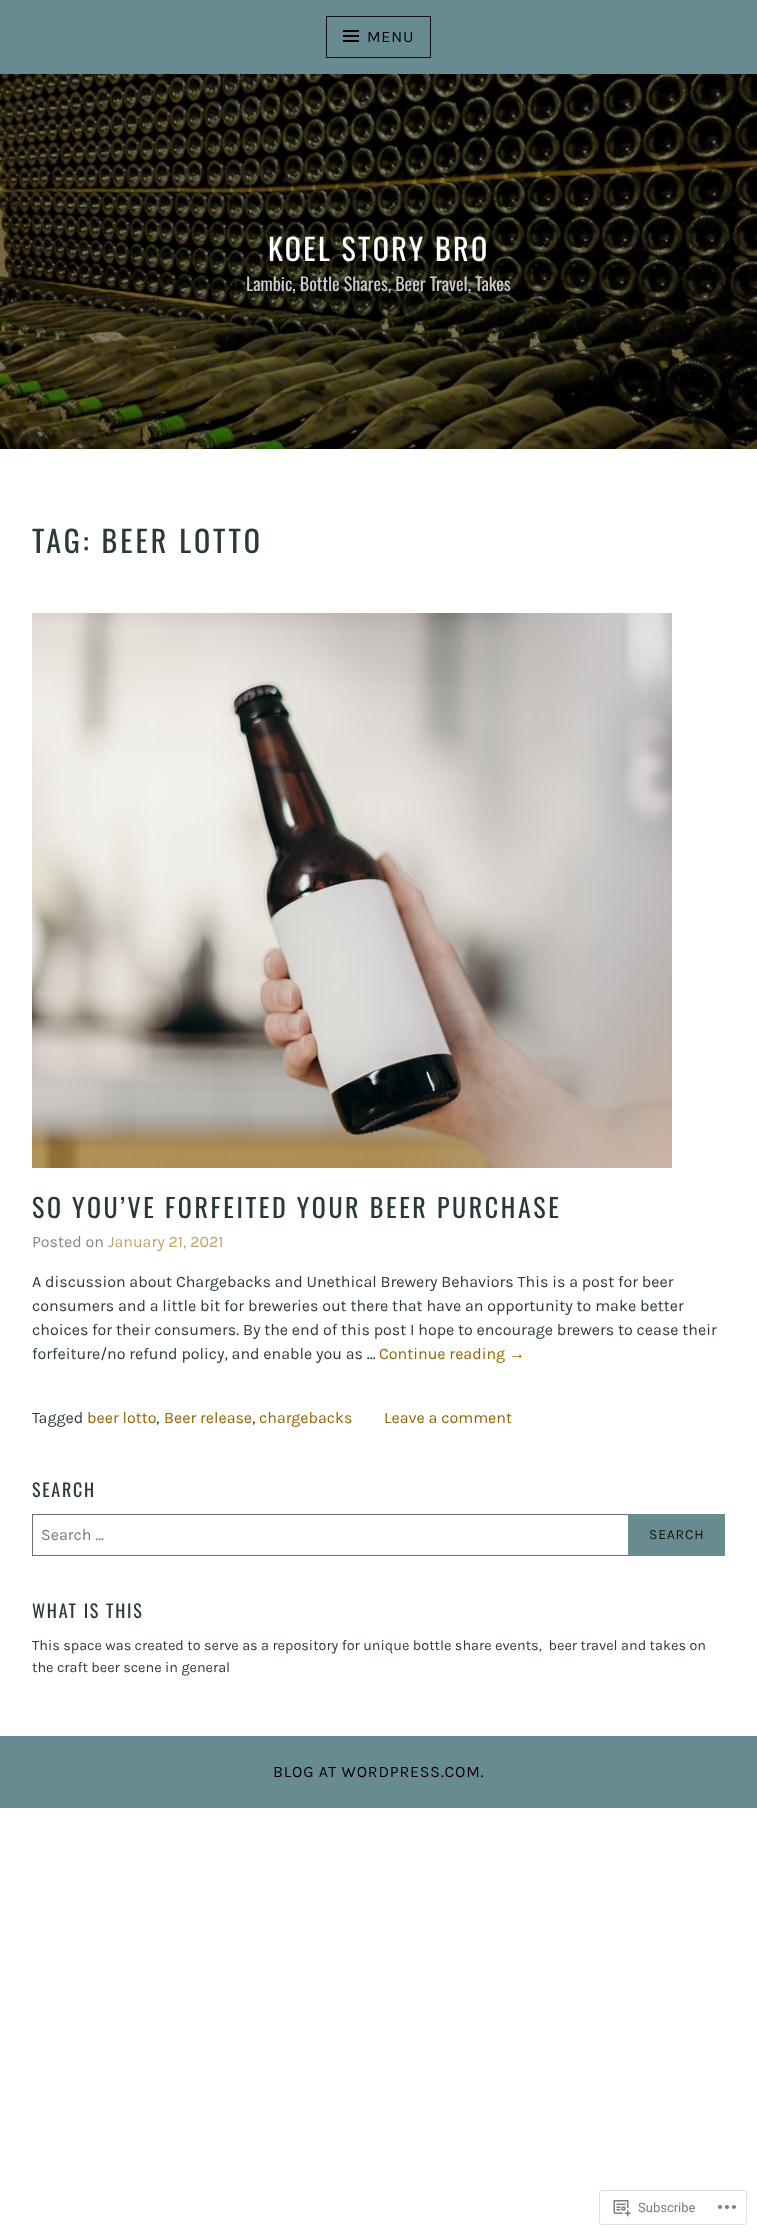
<svg xmlns="http://www.w3.org/2000/svg" width="757" height="2235" viewBox="0 0 757 2235">
  <rect width="100%" height="100%" fill="#ffffff"/>
  <rect x="0" y="0" width="757" height="74" fill="#688b91"/>
  <rect x="326.5" y="16.5" width="104" height="41" fill="none" stroke="#111111"/>
  <image x="343" y="30" width="16" height="12" href="img1.png"/>
  <text x="367" y="42" font-family="Karla" font-size="16" letter-spacing="0.8" fill="#000000">MENU</text>
  <image x="0" y="74" width="757" height="375" href="img2.png"/>
  <text x="268" y="261" font-family="Oswald" font-size="30" letter-spacing="2.4" fill="#ffffff">KOEL STORY BRO</text>
  <text x="246" y="291" font-family="Oswald" font-size="18" fill="#cccccc">Lambic, Bottle Shares, Beer Travel, Takes</text>
  <text x="32" y="553" font-family="Oswald" font-size="30" letter-spacing="3" fill="#2a393b">TAG: BEER LOTTO</text>
  <image x="32" y="613" width="640" height="555" href="img3.png"/>
  <text x="32" y="1218" font-family="Oswald" font-size="26" letter-spacing="2.6" fill="#2a393b">SO YOU’VE FORFEITED YOUR BEER PURCHASE</text>
  <text x="32" y="1247" font-family="Karla" font-size="16" fill="#7f8889">Posted on</text>
  <text x="108" y="1247" font-family="Karla" font-size="16" fill="#bea366">January 21, 2021</text>
  <text x="32" y="1287" font-family="Karla" font-size="16" fill="#2a393b">A discussion about Chargebacks and Unethical Brewery Behaviors This is a post for beer</text>
  <text x="32" y="1311" font-family="Karla" font-size="16" fill="#2a393b">consumers and a little bit for breweries out there that have an opportunity to make better</text>
  <text x="32" y="1335" font-family="Karla" font-size="16" fill="#2a393b">choices for their consumers. By the end of this post I hope to encourage brewers to cease their</text>
  <text x="32" y="1359" font-family="Karla" font-size="16" fill="#2a393b">forfeiture/no refund policy, and enable you as …</text>
  <text x="379" y="1359" font-family="Karla" font-size="16" fill="#936500">Continue reading</text>
  <text x="509" y="1359" font-family="Liberation Sans" font-size="16" fill="#936500">→</text>
  <text x="32" y="1423" font-family="Karla" font-size="16" fill="#2a393b">Tagged</text>
  <text x="87" y="1423" font-family="Karla" font-size="16" fill="#936500">beer lotto</text>
  <text x="156" y="1423" font-family="Karla" font-size="16" fill="#2a393b">,</text>
  <text x="164" y="1423" font-family="Karla" font-size="16" fill="#936500">Beer release</text>
  <text x="252" y="1423" font-family="Karla" font-size="16" fill="#2a393b">,</text>
  <text x="259" y="1423" font-family="Karla" font-size="16" fill="#936500">chargebacks</text>
  <text x="384" y="1423" font-family="Karla" font-size="16" fill="#936500">Leave a comment</text>
  <text x="32" y="1497" font-family="Oswald" font-size="18" letter-spacing="1.75" fill="#2a393b">SEARCH</text>
  <rect x="32.5" y="1514.5" width="692" height="41" fill="none" stroke="#6d6d6d"/>
  <text x="41" y="1540" font-family="Karla" font-size="16" fill="#757575">Search …</text>
  <rect x="628" y="1514" width="97" height="42" fill="#688b91"/>
  <text x="649" y="1539" font-family="Karla" font-size="14" letter-spacing="0.75" fill="#191100">SEARCH</text>
  <text x="32" y="1618" font-family="Oswald" font-size="18" letter-spacing="1.75" fill="#2a393b">WHAT IS THIS</text>
  <text x="32" y="1650" font-family="Karla" font-size="14.4" fill="#2a393b" xml:space="preserve">This space was created to serve as a repository for unique bottle share events,  beer travel and takes on</text>
  <text x="32" y="1672" font-family="Karla" font-size="14.4" fill="#2a393b">the craft beer scene in general</text>
  <rect x="0" y="1736" width="757" height="72" fill="#688b91"/>
  <text x="273" y="1777" font-family="Karla" font-size="16" letter-spacing="0.8" fill="#000000">BLOG AT WORDPRESS.COM.</text>
  <rect x="599.5" y="2190.5" width="147" height="34" rx="2.5" fill="none" stroke="#dddddf"/>
  <image x="613" y="2200" width="18" height="17" href="img4.png"/>
  <text x="638" y="2212" font-family="Roboto" font-size="13" fill="#7b7f85">Subscribe</text>
  <image x="718" y="2205" width="18" height="4" href="img5.png"/>
</svg>
